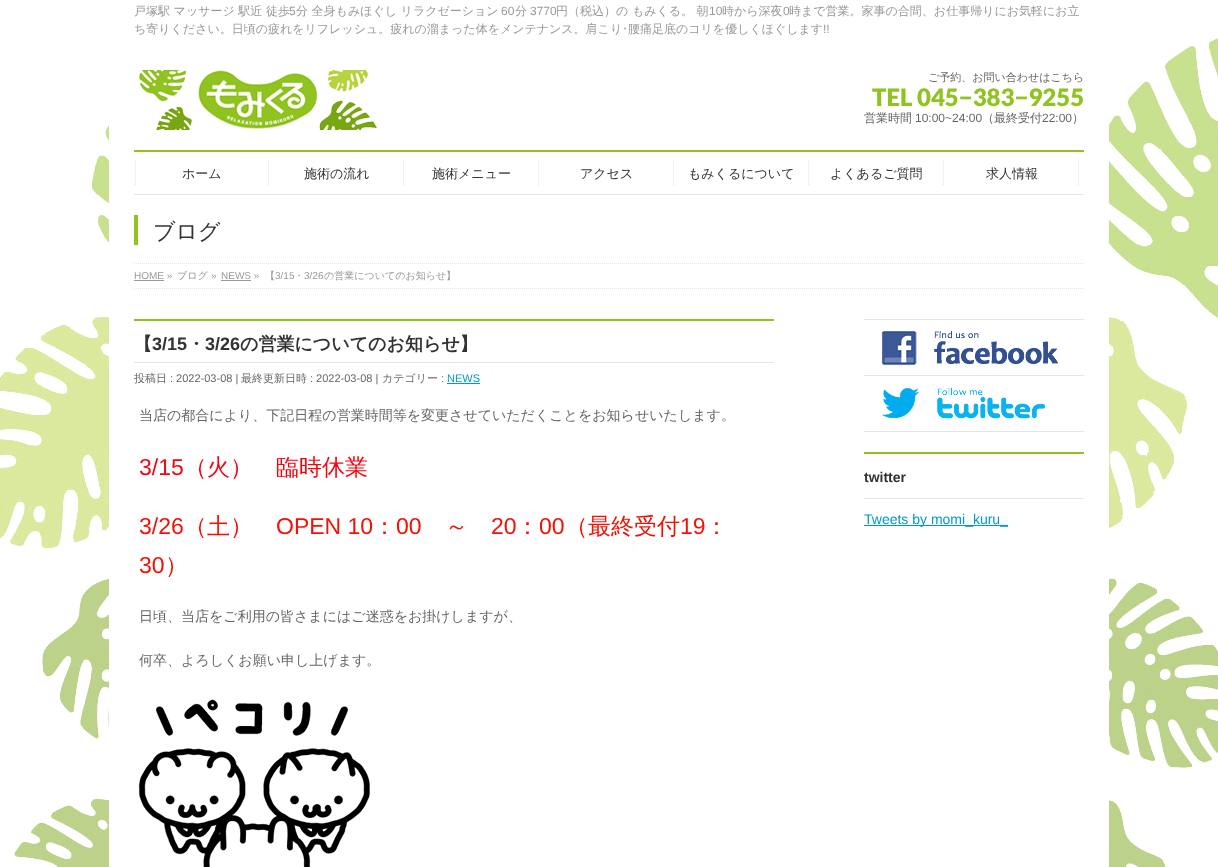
<svg xmlns="http://www.w3.org/2000/svg" width="1218" height="867" viewBox="0 0 1218 867">
  <rect width="100%" height="100%" fill="#ffffff"/>
  <image x="0" y="0" width="1218" height="867" href="img1.png"/>
  <rect x="211" y="0" width="670" height="40" fill="#ffffff"/>
  <text x="134" y="15" font-family="WenQuanYi Zen Hei" font-size="12" font-weight="500" fill="#999999">戸塚駅 マッサージ 駅近 徒歩</text>
  <text x="289" y="15" font-family="Liberation Sans" font-size="12" fill="#999999">5</text>
  <text x="296" y="15" font-family="WenQuanYi Zen Hei" font-size="12" font-weight="500" fill="#999999">分 全身もみほぐし リラクゼーション</text>
  <text x="501" y="15" font-family="Liberation Sans" font-size="12" fill="#999999">60</text>
  <text x="515" y="15" font-family="WenQuanYi Zen Hei" font-size="12" font-weight="500" fill="#999999">分</text>
  <text x="530" y="15" font-family="Liberation Sans" font-size="12" fill="#999999">3770</text>
  <text x="556" y="15" font-family="WenQuanYi Zen Hei" font-size="12" font-weight="500" fill="#999999">円（税込）の もみくる。 朝</text>
  <text x="709" y="15" font-family="Liberation Sans" font-size="12" fill="#999999">10</text>
  <text x="722" y="15" font-family="WenQuanYi Zen Hei" font-size="12" font-weight="500" fill="#999999">時から深夜</text>
  <text x="783" y="15" font-family="Liberation Sans" font-size="12" fill="#999999">0</text>
  <text x="789" y="15" font-family="WenQuanYi Zen Hei" font-size="12" font-weight="500" fill="#999999">時まで営業。家事の合間、お仕事帰りにお気軽にお立</text>
  <text x="134" y="33" font-family="WenQuanYi Zen Hei" font-size="12" font-weight="500" fill="#999999">ち寄りください。日頃の疲れをリフレッシュ。疲れの溜まった体をメンテナンス。肩こり</text>
  <text x="622" y="33" font-family="IPAPGothic" font-size="12" fill="#999999">･</text>
  <text x="628" y="33" font-family="WenQuanYi Zen Hei" font-size="12" font-weight="500" fill="#999999">腰痛足底のコリを優しくほぐします</text>
  <text x="823" y="33" font-family="Liberation Sans" font-size="12" fill="#999999">!!</text>
  <rect x="109" y="40" width="1000" height="155" fill="#ffffff"/>
  <image x="139" y="70" width="238" height="60" href="img2.png"/>
  <text x="928" y="81" font-family="WenQuanYi Zen Hei" font-size="11" font-weight="500" fill="#666666">ご予約、お問い合わせはこちら</text>
  <text x="872" y="106" font-family="Lato" font-size="24" font-weight="900" fill="#90c320">TEL 045−383−9255</text>
  <text x="864" y="122" font-family="WenQuanYi Zen Hei" font-size="12" font-weight="500" fill="#666666">営業時間</text>
  <text x="915" y="122" font-family="Liberation Sans" font-size="12" fill="#666666">10:00~24:00</text>
  <text x="982" y="122" font-family="WenQuanYi Zen Hei" font-size="12" font-weight="500" fill="#666666">（最終受付</text>
  <text x="1042" y="122" font-family="Liberation Sans" font-size="12" fill="#666666">22:00</text>
  <text x="1072" y="122" font-family="WenQuanYi Zen Hei" font-size="12" font-weight="500" fill="#666666">）</text>
  <rect x="134" y="150" width="950" height="2" fill="#90c320"/>
  <rect x="134" y="194" width="950" height="1" fill="#e5e5e5"/>
  <path d="M135.5 160V186" fill="none" stroke="#e5e5e5" stroke-dasharray="1 1"/>
  <text x="182" y="178" font-family="WenQuanYi Zen Hei" font-size="13" font-weight="500" fill="#333333">ホーム</text>
  <path d="M268.5 160V186" fill="none" stroke="#e5e5e5" stroke-dasharray="1 1"/>
  <text x="304" y="178" font-family="WenQuanYi Zen Hei" font-size="13" font-weight="500" fill="#333333">施術の流れ</text>
  <path d="M403.5 160V186" fill="none" stroke="#e5e5e5" stroke-dasharray="1 1"/>
  <text x="432" y="178" font-family="WenQuanYi Zen Hei" font-size="13" font-weight="500" fill="#333333">施術メニュー</text>
  <path d="M538.5 160V186" fill="none" stroke="#e5e5e5" stroke-dasharray="1 1"/>
  <text x="580" y="178" font-family="WenQuanYi Zen Hei" font-size="13" font-weight="500" fill="#333333">アクセス</text>
  <path d="M673.5 160V186" fill="none" stroke="#e5e5e5" stroke-dasharray="1 1"/>
  <text x="688" y="178" font-family="WenQuanYi Zen Hei" font-size="13" font-weight="500" fill="#333333">もみくるについて</text>
  <path d="M808.5 160V186" fill="none" stroke="#e5e5e5" stroke-dasharray="1 1"/>
  <text x="830" y="178" font-family="WenQuanYi Zen Hei" font-size="13" font-weight="500" fill="#333333">よくあるご質問</text>
  <path d="M943.5 160V186" fill="none" stroke="#e5e5e5" stroke-dasharray="1 1"/>
  <text x="986" y="178" font-family="WenQuanYi Zen Hei" font-size="13" font-weight="500" fill="#333333">求人情報</text>
  <path d="M1078.5 160V186" fill="none" stroke="#e5e5e5" stroke-dasharray="1 1"/>
  <rect x="109" y="195" width="1000" height="68" fill="#ffffff"/>
  <rect x="134" y="215" width="4" height="30" fill="#90c320"/>
  <text x="153" y="239" font-family="WenQuanYi Zen Hei" font-size="22" font-weight="500" fill="#333333">ブログ</text>
  <rect x="127" y="263" width="653" height="26" fill="#ffffff"/>
  <path d="M134 263.5H1084" fill="none" stroke="#e5e5e5" stroke-dasharray="1 1"/>
  <path d="M134 288.5H1084" fill="none" stroke="#e5e5e5" stroke-dasharray="1 1"/>
  <text x="134" y="279" font-family="Liberation Sans" font-size="10" fill="#999999">HOME »</text>
  <rect x="134" y="280" width="30" height="1" fill="#999999"/>
  <text x="177" y="279" font-family="WenQuanYi Zen Hei" font-size="10" font-weight="500" fill="#999999">ブログ</text>
  <text x="211" y="279" font-family="Liberation Sans" font-size="10" fill="#999999">»</text>
  <text x="221" y="279" font-family="Liberation Sans" font-size="10" fill="#999999">NEWS »</text>
  <rect x="221" y="280" width="30" height="1" fill="#999999"/>
  <text x="265" y="279" font-family="WenQuanYi Zen Hei" font-size="10" font-weight="500" fill="#999999">【</text>
  <text x="275" y="279" font-family="Liberation Sans" font-size="10" fill="#999999">3/15</text>
  <text x="294" y="279" font-family="WenQuanYi Zen Hei" font-size="10" font-weight="500" fill="#999999">・</text>
  <text x="304" y="279" font-family="Liberation Sans" font-size="10" fill="#999999">3/26</text>
  <text x="324" y="279" font-family="WenQuanYi Zen Hei" font-size="10" font-weight="500" fill="#999999">の営業についてのお知らせ】</text>
  <rect x="109" y="289" width="1000" height="578" fill="#ffffff"/>
  <rect x="134" y="319" width="640" height="2" fill="#90c320"/>
  <rect x="134" y="362" width="640" height="1" fill="#e5e5e5"/>
  <text x="134" y="350" font-family="WenQuanYi Zen Hei" font-size="18" font-weight="bold" fill="#333333">【</text>
  <text x="152" y="350" font-family="Liberation Sans" font-size="18" font-weight="bold" fill="#333333">3/15</text>
  <text x="187" y="350" font-family="WenQuanYi Zen Hei" font-size="18" font-weight="bold" fill="#333333">・</text>
  <text x="205" y="350" font-family="Liberation Sans" font-size="18" font-weight="bold" fill="#333333">3/26</text>
  <text x="240" y="350" font-family="WenQuanYi Zen Hei" font-size="18" font-weight="bold" fill="#333333">の営業についてのお知らせ】</text>
  <text x="134" y="382" font-family="WenQuanYi Zen Hei" font-size="11" font-weight="500" fill="#666666">投稿日</text>
  <text x="170" y="382" font-family="Liberation Sans" font-size="11" fill="#666666">: 2022-03-08 |</text>
  <text x="241" y="382" font-family="WenQuanYi Zen Hei" font-size="11" font-weight="500" fill="#666666">最終更新日時</text>
  <text x="310" y="382" font-family="Liberation Sans" font-size="11" fill="#666666">: 2022-03-08 |</text>
  <text x="382" y="382" font-family="WenQuanYi Zen Hei" font-size="11" font-weight="500" fill="#666666">カテゴリー</text>
  <text x="441" y="382" font-family="Liberation Sans" font-size="11" fill="#666666">:</text>
  <text x="447" y="382" font-family="Liberation Sans" font-size="11" fill="#0099cc">NEWS</text>
  <rect x="447" y="383" width="33" height="1" fill="#0099cc"/>
  <text x="139" y="420" font-family="WenQuanYi Zen Hei" font-size="14" font-weight="500" fill="#666666">当店の都合により、下記日程の営業時間等を変更させていただくことをお知らせいたします。</text>
  <text x="139" y="475" font-family="Liberation Sans" font-size="23" fill="#f60511">3/15</text>
  <text x="184" y="475" font-family="WenQuanYi Zen Hei" font-size="23" font-weight="500" fill="#f60511">（火）　臨時休業</text>
  <text x="139" y="534" font-family="Liberation Sans" font-size="23" fill="#f31105">3/26</text>
  <text x="184" y="534" font-family="WenQuanYi Zen Hei" font-size="23" font-weight="500" fill="#f31105">（土）</text>
  <text x="276" y="534" font-family="Liberation Sans" font-size="23" fill="#f31105">OPEN 10</text>
  <text x="373" y="534" font-family="WenQuanYi Zen Hei" font-size="23" font-weight="500" fill="#f31105">：</text>
  <text x="396" y="534" font-family="Liberation Sans" font-size="23" fill="#f31105">00</text>
  <text x="445" y="534" font-family="WenQuanYi Zen Hei" font-size="23" font-weight="500" fill="#f31105">～</text>
  <text x="491" y="534" font-family="Liberation Sans" font-size="23" fill="#f31105">20</text>
  <text x="516" y="534" font-family="WenQuanYi Zen Hei" font-size="23" font-weight="500" fill="#f31105">：</text>
  <text x="539" y="534" font-family="Liberation Sans" font-size="23" fill="#f31105">00</text>
  <text x="565" y="534" font-family="WenQuanYi Zen Hei" font-size="23" font-weight="500" fill="#f31105">（最終受付</text>
  <text x="680" y="534" font-family="Liberation Sans" font-size="23" fill="#f31105">19</text>
  <text x="705" y="534" font-family="WenQuanYi Zen Hei" font-size="23" font-weight="500" fill="#f31105">：</text>
  <text x="139" y="573" font-family="Liberation Sans" font-size="23" fill="#f31105">30</text>
  <text x="165" y="573" font-family="WenQuanYi Zen Hei" font-size="23" font-weight="500" fill="#f31105">）</text>
  <text x="139" y="621" font-family="WenQuanYi Zen Hei" font-size="14" font-weight="500" fill="#666666">日頃、当店をご利用の皆さまにはご迷惑をお掛けしますが、</text>
  <text x="139" y="665" font-family="WenQuanYi Zen Hei" font-size="14" font-weight="500" fill="#666666">何卒、よろしくお願い申し上げます。</text>
  <image x="138" y="699" width="232" height="168" href="img3.png"/>
  <rect x="864" y="319" width="220" height="1" fill="#e5e5e5"/>
  <rect x="864" y="375" width="220" height="1" fill="#e5e5e5"/>
  <image x="882" y="331" width="176" height="34" href="img4.png"/>
  <rect x="864" y="431" width="220" height="1" fill="#e5e5e5"/>
  <image x="882" y="388" width="164" height="31" href="img5.png"/>
  <rect x="864" y="452" width="220" height="2" fill="#90c320"/>
  <rect x="864" y="498" width="220" height="1" fill="#e5e5e5"/>
  <text x="864" y="482" font-family="Liberation Sans" font-size="14" font-weight="bold" fill="#333333">twitter</text>
  <rect x="864" y="525" width="144" height="1" fill="#0099cc"/>
  <text x="864" y="524" font-family="Liberation Sans" font-size="14" fill="#0099cc">Tweets by momi_kuru_</text>
</svg>
